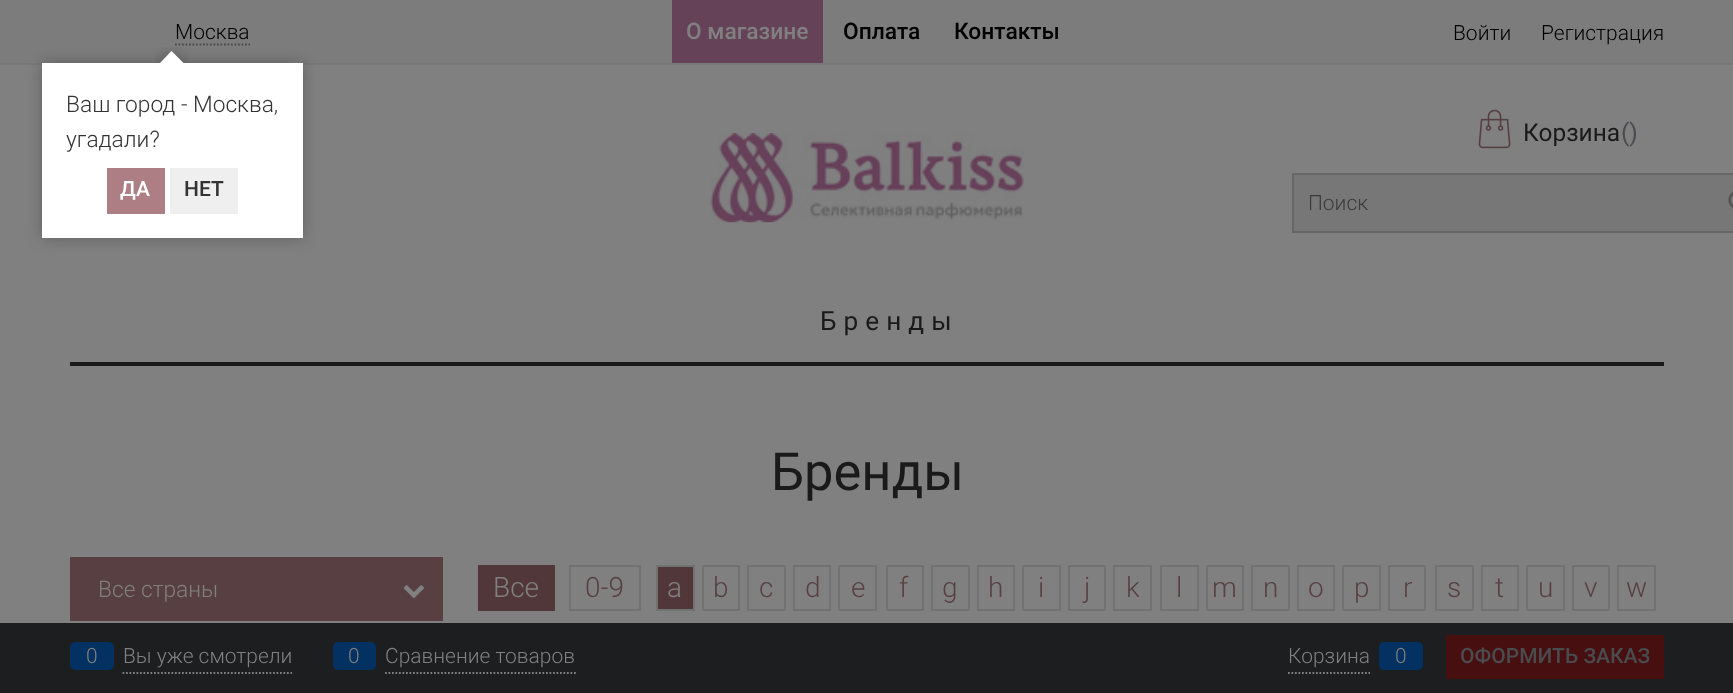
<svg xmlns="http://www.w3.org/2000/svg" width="1733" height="693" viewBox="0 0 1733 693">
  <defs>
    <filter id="blur1" x="-50%" y="-200%" width="200%" height="500%"><feGaussianBlur stdDeviation="8"/></filter>
    <clipPath id="clip1"><rect x="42" y="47" width="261" height="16"/></clipPath>
    <clipPath id="clip2"><rect x="42" y="47" width="261" height="16"/></clipPath>
  </defs>
  <rect width="100%" height="100%" fill="#808080"/>
  <rect x="0" y="0" width="1733" height="63" fill="#7c7c7c"/>
  <rect x="0" y="63" width="1733" height="2" fill="#777777"/>
  <text x="175" y="39" font-family="Roboto" font-size="21" font-weight="300" fill="#000000">Москва</text>
  <path d="M175 44.5H250" fill="none" stroke="#4a4b4e" stroke-width="1.8" stroke-dasharray="1.75 1.75"/>
  <rect x="672" y="0" width="151" height="63" fill="#664259"/>
  <text x="686" y="39" font-family="Roboto" font-size="22.75" font-weight="500" fill="#808080">О магазине</text>
  <text x="843" y="39" font-family="Roboto" font-size="22.75" font-weight="500" fill="#000000">Оплата</text>
  <text x="954" y="39" font-family="Roboto" font-size="22.75" font-weight="500" fill="#000000">Контакты</text>
  <text x="1453" y="40" font-family="Roboto" font-size="21" font-weight="300" fill="#000000">Войти</text>
  <text x="1541" y="40" font-family="Roboto" font-size="21" font-weight="300" fill="#000000">Регистрация</text>
  <image x="710" y="133" width="314" height="90" href="img1.png"/>
  <image x="1478" y="109" width="33" height="40" href="img2.png"/>
  <text x="1523" y="141" font-family="Roboto" font-size="24.5" fill="#1a1a1a">Корзина</text>
  <text x="1621" y="141" font-family="Roboto" font-size="24.5" fill="#4a4b4e">()</text>
  <rect x="1294" y="175" width="439" height="56" fill="#777777"/>
  <rect x="1292" y="173" width="441" height="2" fill="#666666"/>
  <rect x="1292" y="231" width="441" height="2" fill="#666666"/>
  <rect x="1292" y="173" width="2" height="60" fill="#666666"/>
  <text x="1308" y="210" font-family="Roboto" font-size="21" font-weight="300" fill="#3b3b3b">Поиск</text>
  <image x="1728" y="191" width="5" height="18" href="img3.png"/>
  <text x="820" y="330" font-family="Roboto" font-size="26.25" letter-spacing="7" fill="#1a1a1a">Бренды</text>
  <rect x="70" y="362" width="1594" height="4" fill="#1a1a1a"/>
  <text x="771" y="490" font-family="Roboto" font-size="52.5" fill="#1a1a1a">Бренды</text>
  <rect x="70" y="557" width="373" height="64" fill="#573f42"/>
  <text x="98" y="597" font-family="Roboto" font-size="22.75" font-weight="300" fill="#808080">Все страны</text>
  <image x="403" y="585" width="21" height="14" href="img4.png"/>
  <rect x="478" y="565" width="77" height="46" fill="#52373a"/>
  <text x="493" y="597" font-family="Roboto" font-size="28" font-weight="300" fill="#808080">Все</text>
  <rect x="570" y="566" width="70" height="44" fill="none" stroke="#717272" stroke-width="2"/>
  <text x="585" y="597" font-family="Roboto" font-size="28" font-weight="300" fill="#573f42">0-9</text>
  <rect x="657" y="566" width="37" height="44" fill="#52373a" stroke="#717272" stroke-width="2"/>
  <text x="667" y="597" font-family="Roboto" font-size="28" font-weight="300" fill="#808080">a</text>
  <rect x="703" y="566" width="36" height="44" fill="none" stroke="#717272" stroke-width="2"/>
  <text x="713" y="597" font-family="Roboto" font-size="28" font-weight="300" fill="#573f42">b</text>
  <rect x="748" y="566" width="37" height="44" fill="none" stroke="#717272" stroke-width="2"/>
  <text x="759" y="597" font-family="Roboto" font-size="28" font-weight="300" fill="#573f42">c</text>
  <rect x="794" y="566" width="36" height="44" fill="none" stroke="#717272" stroke-width="2"/>
  <text x="805" y="597" font-family="Roboto" font-size="28" font-weight="300" fill="#573f42">d</text>
  <rect x="839" y="566" width="37" height="44" fill="none" stroke="#717272" stroke-width="2"/>
  <text x="851" y="597" font-family="Roboto" font-size="28" font-weight="300" fill="#573f42">e</text>
  <rect x="887" y="566" width="36" height="44" fill="none" stroke="#717272" stroke-width="2"/>
  <text x="899" y="597" font-family="Roboto" font-size="28" font-weight="300" fill="#573f42">f</text>
  <rect x="932" y="566" width="37" height="44" fill="none" stroke="#717272" stroke-width="2"/>
  <text x="942" y="597" font-family="Roboto" font-size="28" font-weight="300" fill="#573f42">g</text>
  <rect x="978" y="566" width="36" height="44" fill="none" stroke="#717272" stroke-width="2"/>
  <text x="988" y="597" font-family="Roboto" font-size="28" font-weight="300" fill="#573f42">h</text>
  <rect x="1023" y="566" width="37" height="44" fill="none" stroke="#717272" stroke-width="2"/>
  <text x="1038" y="597" font-family="Roboto" font-size="28" font-weight="300" fill="#573f42">i</text>
  <rect x="1069" y="566" width="36" height="44" fill="none" stroke="#717272" stroke-width="2"/>
  <text x="1084" y="597" font-family="Roboto" font-size="28" font-weight="300" fill="#573f42">j</text>
  <rect x="1114" y="566" width="37" height="44" fill="none" stroke="#717272" stroke-width="2"/>
  <text x="1126" y="597" font-family="Roboto" font-size="28" font-weight="300" fill="#573f42">k</text>
  <rect x="1161" y="566" width="37" height="44" fill="none" stroke="#717272" stroke-width="2"/>
  <text x="1176" y="597" font-family="Roboto" font-size="28" font-weight="300" fill="#573f42">l</text>
  <rect x="1207" y="566" width="36" height="44" fill="none" stroke="#717272" stroke-width="2"/>
  <text x="1212" y="597" font-family="Roboto" font-size="28" font-weight="300" fill="#573f42">m</text>
  <rect x="1252" y="566" width="37" height="44" fill="none" stroke="#717272" stroke-width="2"/>
  <text x="1263" y="597" font-family="Roboto" font-size="28" font-weight="300" fill="#573f42">n</text>
  <rect x="1298" y="566" width="36" height="44" fill="none" stroke="#717272" stroke-width="2"/>
  <text x="1308" y="597" font-family="Roboto" font-size="28" font-weight="300" fill="#573f42">o</text>
  <rect x="1343" y="566" width="37" height="44" fill="none" stroke="#717272" stroke-width="2"/>
  <text x="1354" y="597" font-family="Roboto" font-size="28" font-weight="300" fill="#573f42">p</text>
  <rect x="1389" y="566" width="36" height="44" fill="none" stroke="#717272" stroke-width="2"/>
  <text x="1403" y="597" font-family="Roboto" font-size="28" font-weight="300" fill="#573f42">r</text>
  <rect x="1436" y="566" width="37" height="44" fill="none" stroke="#717272" stroke-width="2"/>
  <text x="1447" y="597" font-family="Roboto" font-size="28" font-weight="300" fill="#573f42">s</text>
  <rect x="1482" y="566" width="36" height="44" fill="none" stroke="#717272" stroke-width="2"/>
  <text x="1495" y="597" font-family="Roboto" font-size="28" font-weight="300" fill="#573f42">t</text>
  <rect x="1527" y="566" width="37" height="44" fill="none" stroke="#717272" stroke-width="2"/>
  <text x="1538" y="597" font-family="Roboto" font-size="28" font-weight="300" fill="#573f42">u</text>
  <rect x="1573" y="566" width="36" height="44" fill="none" stroke="#717272" stroke-width="2"/>
  <text x="1584" y="597" font-family="Roboto" font-size="28" font-weight="300" fill="#573f42">v</text>
  <rect x="1618" y="566" width="37" height="44" fill="none" stroke="#717272" stroke-width="2"/>
  <text x="1626" y="597" font-family="Roboto" font-size="28" font-weight="300" fill="#573f42">w</text>
  <rect x="0" y="623" width="1733" height="70" fill="#1c1e20"/>
  <path d="M122.5 673H292" fill="none" stroke="#808080" stroke-width="1.8" stroke-dasharray="1.75 1.75"/>
  <rect x="70" y="642" width="44" height="28" rx="5" fill="#033161"/>
  <text x="86" y="663" font-family="Roboto" font-size="21" font-weight="300" fill="#808080">0</text>
  <text x="123" y="663" font-family="Roboto" font-size="21" font-weight="300" fill="#808080">Вы уже смотрели</text>
  <path d="M385 673H576" fill="none" stroke="#808080" stroke-width="1.8" stroke-dasharray="1.75 1.75"/>
  <rect x="333" y="642" width="43" height="28" rx="5" fill="#033161"/>
  <text x="348" y="663" font-family="Roboto" font-size="21" font-weight="300" fill="#808080">0</text>
  <text x="385" y="663" font-family="Roboto" font-size="21" font-weight="300" fill="#808080">Сравнение товаров</text>
  <path d="M1288 673H1370" fill="none" stroke="#808080" stroke-width="1.8" stroke-dasharray="1.75 1.75"/>
  <text x="1288" y="663" font-family="Roboto" font-size="21" font-weight="300" fill="#808080">Корзина</text>
  <rect x="1379" y="642" width="44" height="28" rx="5" fill="#033161"/>
  <text x="1395" y="663" font-family="Roboto" font-size="21" font-weight="300" fill="#808080">0</text>
  <rect x="1446" y="635" width="218" height="44" fill="#470f10"/>
  <text x="1460" y="663" font-family="Roboto" font-size="21" font-weight="500" fill="#4a4b4e">ОФОРМИТЬ ЗАКАЗ</text>
  <rect x="42" y="63" width="261" height="175" fill="#000000" fill-opacity="0.25" filter="url(#blur1)"/>
  <rect x="42" y="63" width="261" height="175" fill="#ffffff"/>
  <g clip-path="url(#clip1)">
    <rect x="163" y="54" width="17" height="18" fill="#000000" fill-opacity="0.25" filter="url(#blur1)"/>
  </g>
  <g clip-path="url(#clip2)">
    <path d="M171.5 51L184 63.5L171.5 76L159.5 63.5Z" fill="#ffffff"/>
  </g>
  <text x="66" y="112" font-family="Roboto" font-size="22.75" font-weight="300" fill="#333333">Ваш город - Москва,</text>
  <text x="66" y="147" font-family="Roboto" font-size="22.75" font-weight="300" fill="#333333">угадали?</text>
  <rect x="107" y="168" width="58" height="46" fill="#ad7e83"/>
  <text x="120" y="196" font-family="Roboto" font-size="21" font-weight="500" fill="#ffffff">ДА</text>
  <rect x="170" y="168" width="68" height="46" fill="#efefef"/>
  <text x="184" y="196" font-family="Roboto" font-size="21" font-weight="500" fill="#333333">НЕТ</text>
</svg>
